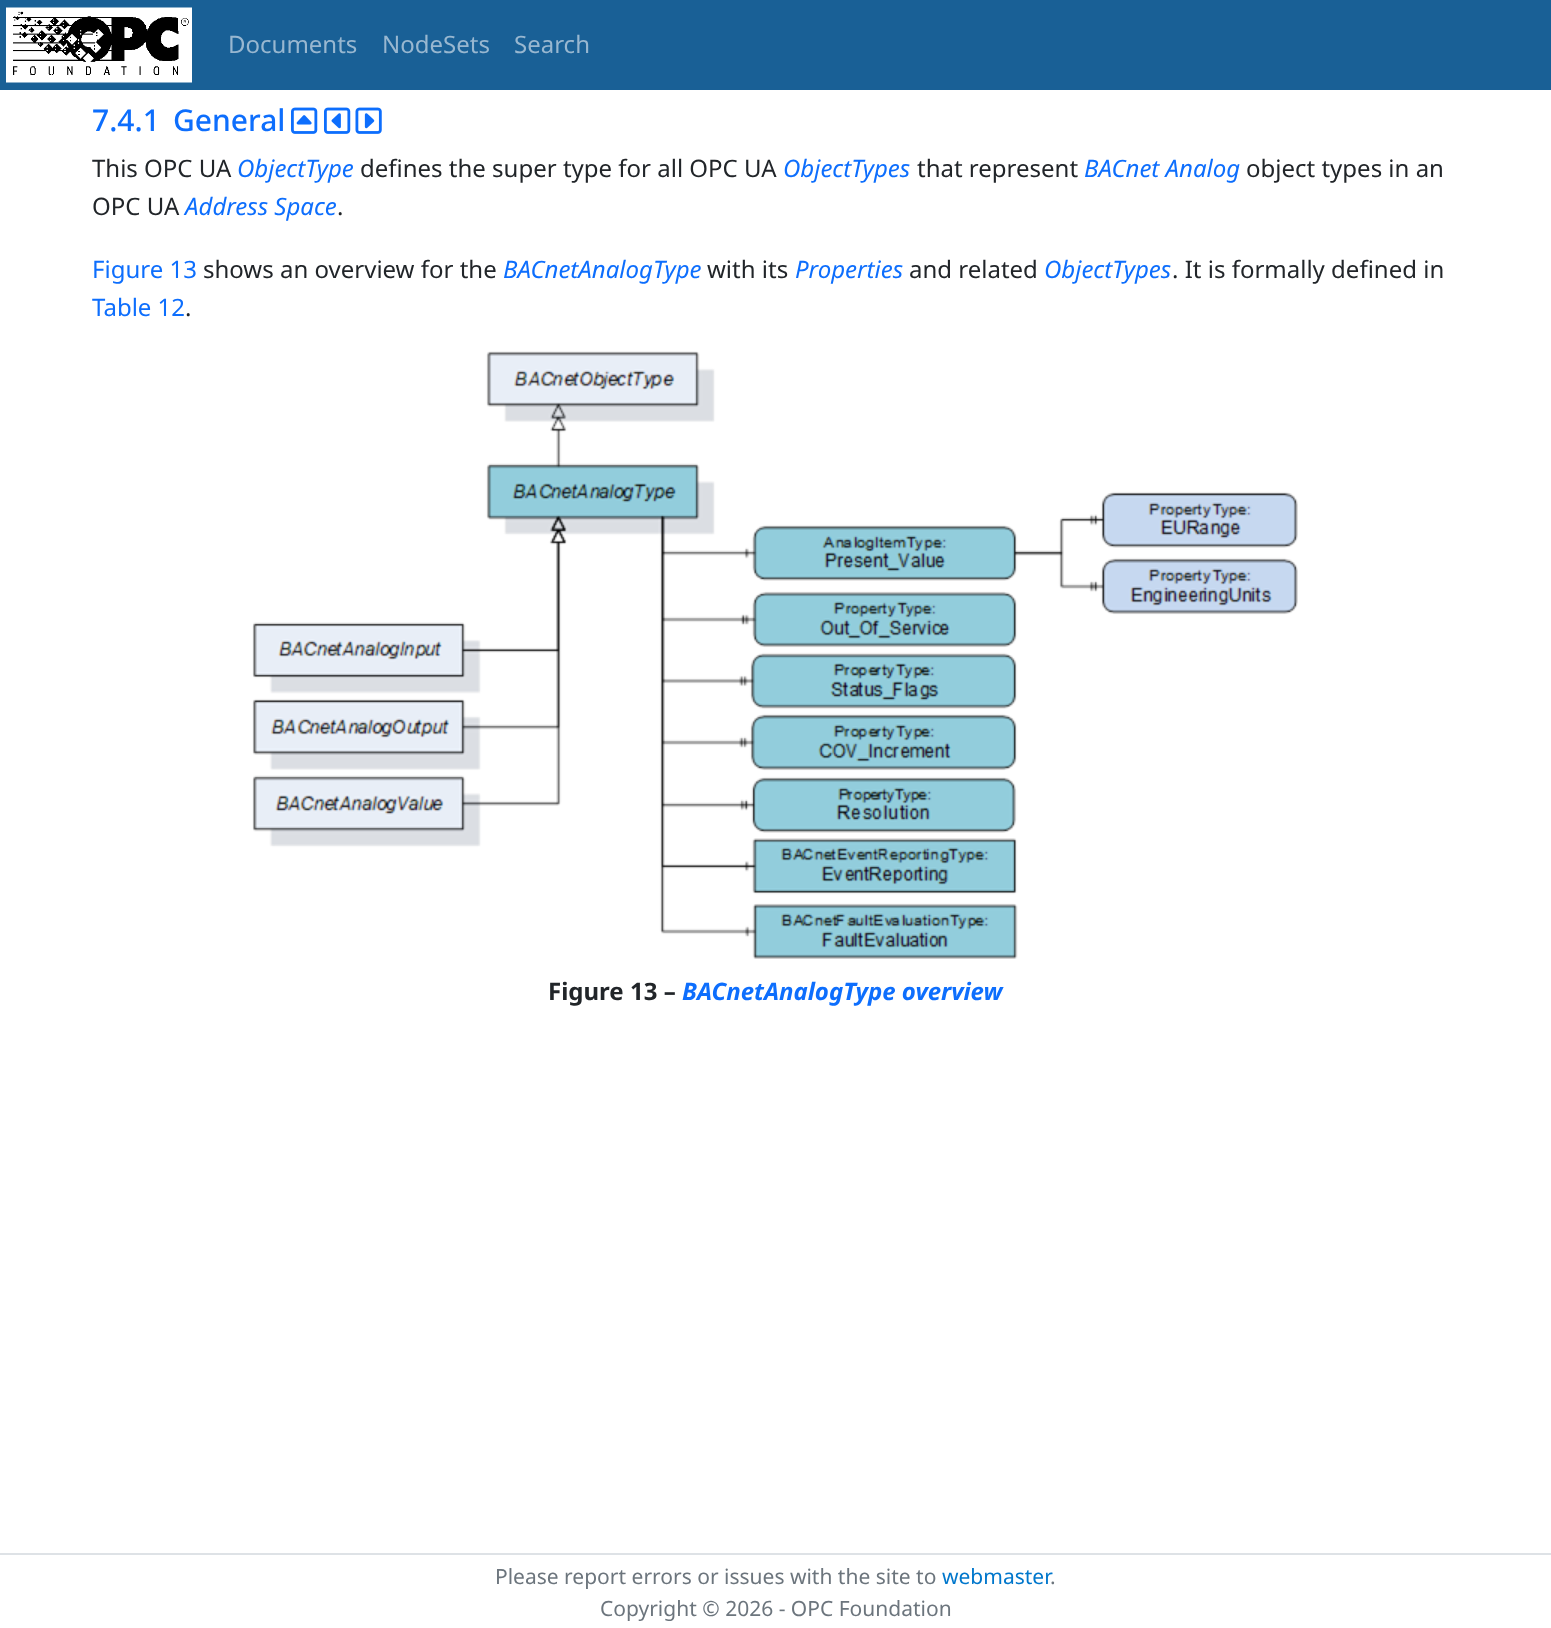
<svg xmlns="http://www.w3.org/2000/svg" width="1551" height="1628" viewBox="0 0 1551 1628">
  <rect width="100%" height="100%" fill="#ffffff"/>
  <rect x="0" y="0" width="1551" height="90" fill="#196096"/>
  <image x="6" y="7" width="186" height="76" href="img1.png"/>
  <text x="228" y="53" font-family="Noto Sans" font-size="24" fill="#98b7d0">Documents</text>
  <text x="382" y="53" font-family="Noto Sans" font-size="24" fill="#98b7d0">NodeSets</text>
  <text x="514" y="53" font-family="Noto Sans" font-size="24" fill="#98b7d0">Search</text>
  <text x="92" y="131" font-family="Noto Sans" font-size="30" font-weight="500" fill="#0d6efd">7.4.1</text>
  <text x="173" y="131" font-family="Noto Sans" font-size="30" font-weight="500" fill="#0d6efd">General</text>
  <image x="291" y="107" width="27" height="27" href="img2.png"/>
  <image x="324" y="107" width="27" height="27" href="img3.png"/>
  <image x="355" y="107" width="27" height="27" href="img4.png"/>
  <text x="92" y="177" font-family="Noto Sans" font-size="24" fill="#212529">This OPC UA</text>
  <text x="237" y="177" font-family="Noto Sans" font-size="24" font-style="italic" fill="#0d6efd">ObjectType</text>
  <text x="360" y="177" font-family="Noto Sans" font-size="24" fill="#212529">defines the super type for all OPC UA</text>
  <text x="783" y="177" font-family="Noto Sans" font-size="24" font-style="italic" fill="#0d6efd">ObjectTypes</text>
  <text x="917" y="177" font-family="Noto Sans" font-size="24" fill="#212529">that represent</text>
  <text x="1084" y="177" font-family="Noto Sans" font-size="24" font-style="italic" fill="#0d6efd">BACnet Analog</text>
  <text x="1246" y="177" font-family="Noto Sans" font-size="24" fill="#212529">object types in an</text>
  <text x="92" y="215" font-family="Noto Sans" font-size="24" fill="#212529">OPC UA</text>
  <text x="185" y="215" font-family="Noto Sans" font-size="24" font-style="italic" fill="#0d6efd">Address Space</text>
  <text x="337" y="215" font-family="Noto Sans" font-size="24" fill="#212529">.</text>
  <text x="92" y="278" font-family="Noto Sans" font-size="24" fill="#0d6efd">Figure 13</text>
  <text x="203" y="278" font-family="Noto Sans" font-size="24" fill="#212529">shows an overview for the</text>
  <text x="503" y="278" font-family="Noto Sans" font-size="24" font-style="italic" fill="#0d6efd">BACnetAnalogType</text>
  <text x="707" y="278" font-family="Noto Sans" font-size="24" fill="#212529">with its</text>
  <text x="795" y="278" font-family="Noto Sans" font-size="24" font-style="italic" fill="#0d6efd">Properties</text>
  <text x="909" y="278" font-family="Noto Sans" font-size="24" fill="#212529">and related</text>
  <text x="1044" y="278" font-family="Noto Sans" font-size="24" font-style="italic" fill="#0d6efd">ObjectTypes</text>
  <text x="1172" y="278" font-family="Noto Sans" font-size="24" fill="#212529">. It is formally defined in</text>
  <text x="92" y="316" font-family="Noto Sans" font-size="24" fill="#0d6efd">Table 12</text>
  <text x="185" y="316" font-family="Noto Sans" font-size="24" fill="#212529">.</text>
  <image x="252" y="351" width="1046" height="608" href="img5.png"/>
  <text x="548" y="1000" font-family="Noto Sans" font-size="24" font-weight="bold" fill="#212529">Figure 13 –</text>
  <text x="682" y="1000" font-family="Noto Sans" font-size="24" font-weight="bold" font-style="italic" fill="#0d6efd">BACnetAnalogType overview</text>
  <rect x="0" y="1553" width="1551" height="2" fill="#dee2e6"/>
  <text x="495" y="1584" font-family="Noto Sans" font-size="21" fill="#6c757d">Please report errors or issues with the site to</text>
  <text x="942" y="1584" font-family="Noto Sans" font-size="21" fill="#0077cc">webmaster</text>
  <text x="1050" y="1584" font-family="Noto Sans" font-size="21" fill="#6c757d">.</text>
  <text x="600" y="1616" font-family="Noto Sans" font-size="21" fill="#6c757d">Copyright © 2026 - OPC Foundation</text>
</svg>
